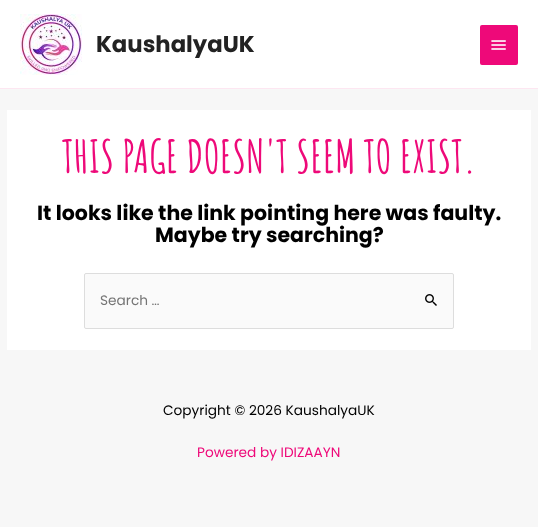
<svg xmlns="http://www.w3.org/2000/svg" width="538" height="527" viewBox="0 0 538 527">
  <rect width="100%" height="100%" fill="#f7f7f7"/>
  <rect x="0" y="0" width="538" height="88" fill="#ffffff"/>
  <rect x="0" y="88" width="538" height="1" fill="#fde6f1"/>
  <image x="20" y="14" width="62" height="61" href="img1.png"/>
  <text x="96" y="52" font-family="Poppins" font-size="22.75" font-weight="bold" fill="#222222">KaushalyaUK</text>
  <rect x="480" y="25" width="38" height="40" rx="2" fill="#ee0979"/>
  <image x="491" y="40" width="15" height="10" href="img2.png"/>
  <rect x="7" y="110" width="524" height="240" fill="#ffffff"/>
  <text x="62" y="173" font-family="Amatic SC" font-size="45" font-weight="bold" fill="#ee0979">THIS PAGE DOESN'T SEEM TO EXIST.</text>
  <text x="37" y="220" font-family="Poppins" font-size="20.5" font-weight="bold" fill="#000000">It looks like the link pointing here was faulty.</text>
  <text x="155" y="242" font-family="Poppins" font-size="20.5" font-weight="bold" fill="#000000">Maybe try searching?</text>
  <rect x="84.5" y="273.5" width="369" height="55" rx="1.5" fill="#fafafa" stroke="#dddddd"/>
  <text x="100" y="305" font-family="Poppins" font-size="13.7" fill="#757575">Search …</text>
  <image x="425" y="294" width="12" height="12" href="img3.png"/>
  <text x="163" y="415" font-family="Poppins" font-size="13.7" fill="#000000">Copyright © 2026 KaushalyaUK</text>
  <text x="197" y="457" font-family="Poppins" font-size="13.7" fill="#ee0979">Powered by IDIZAAYN</text>
</svg>
